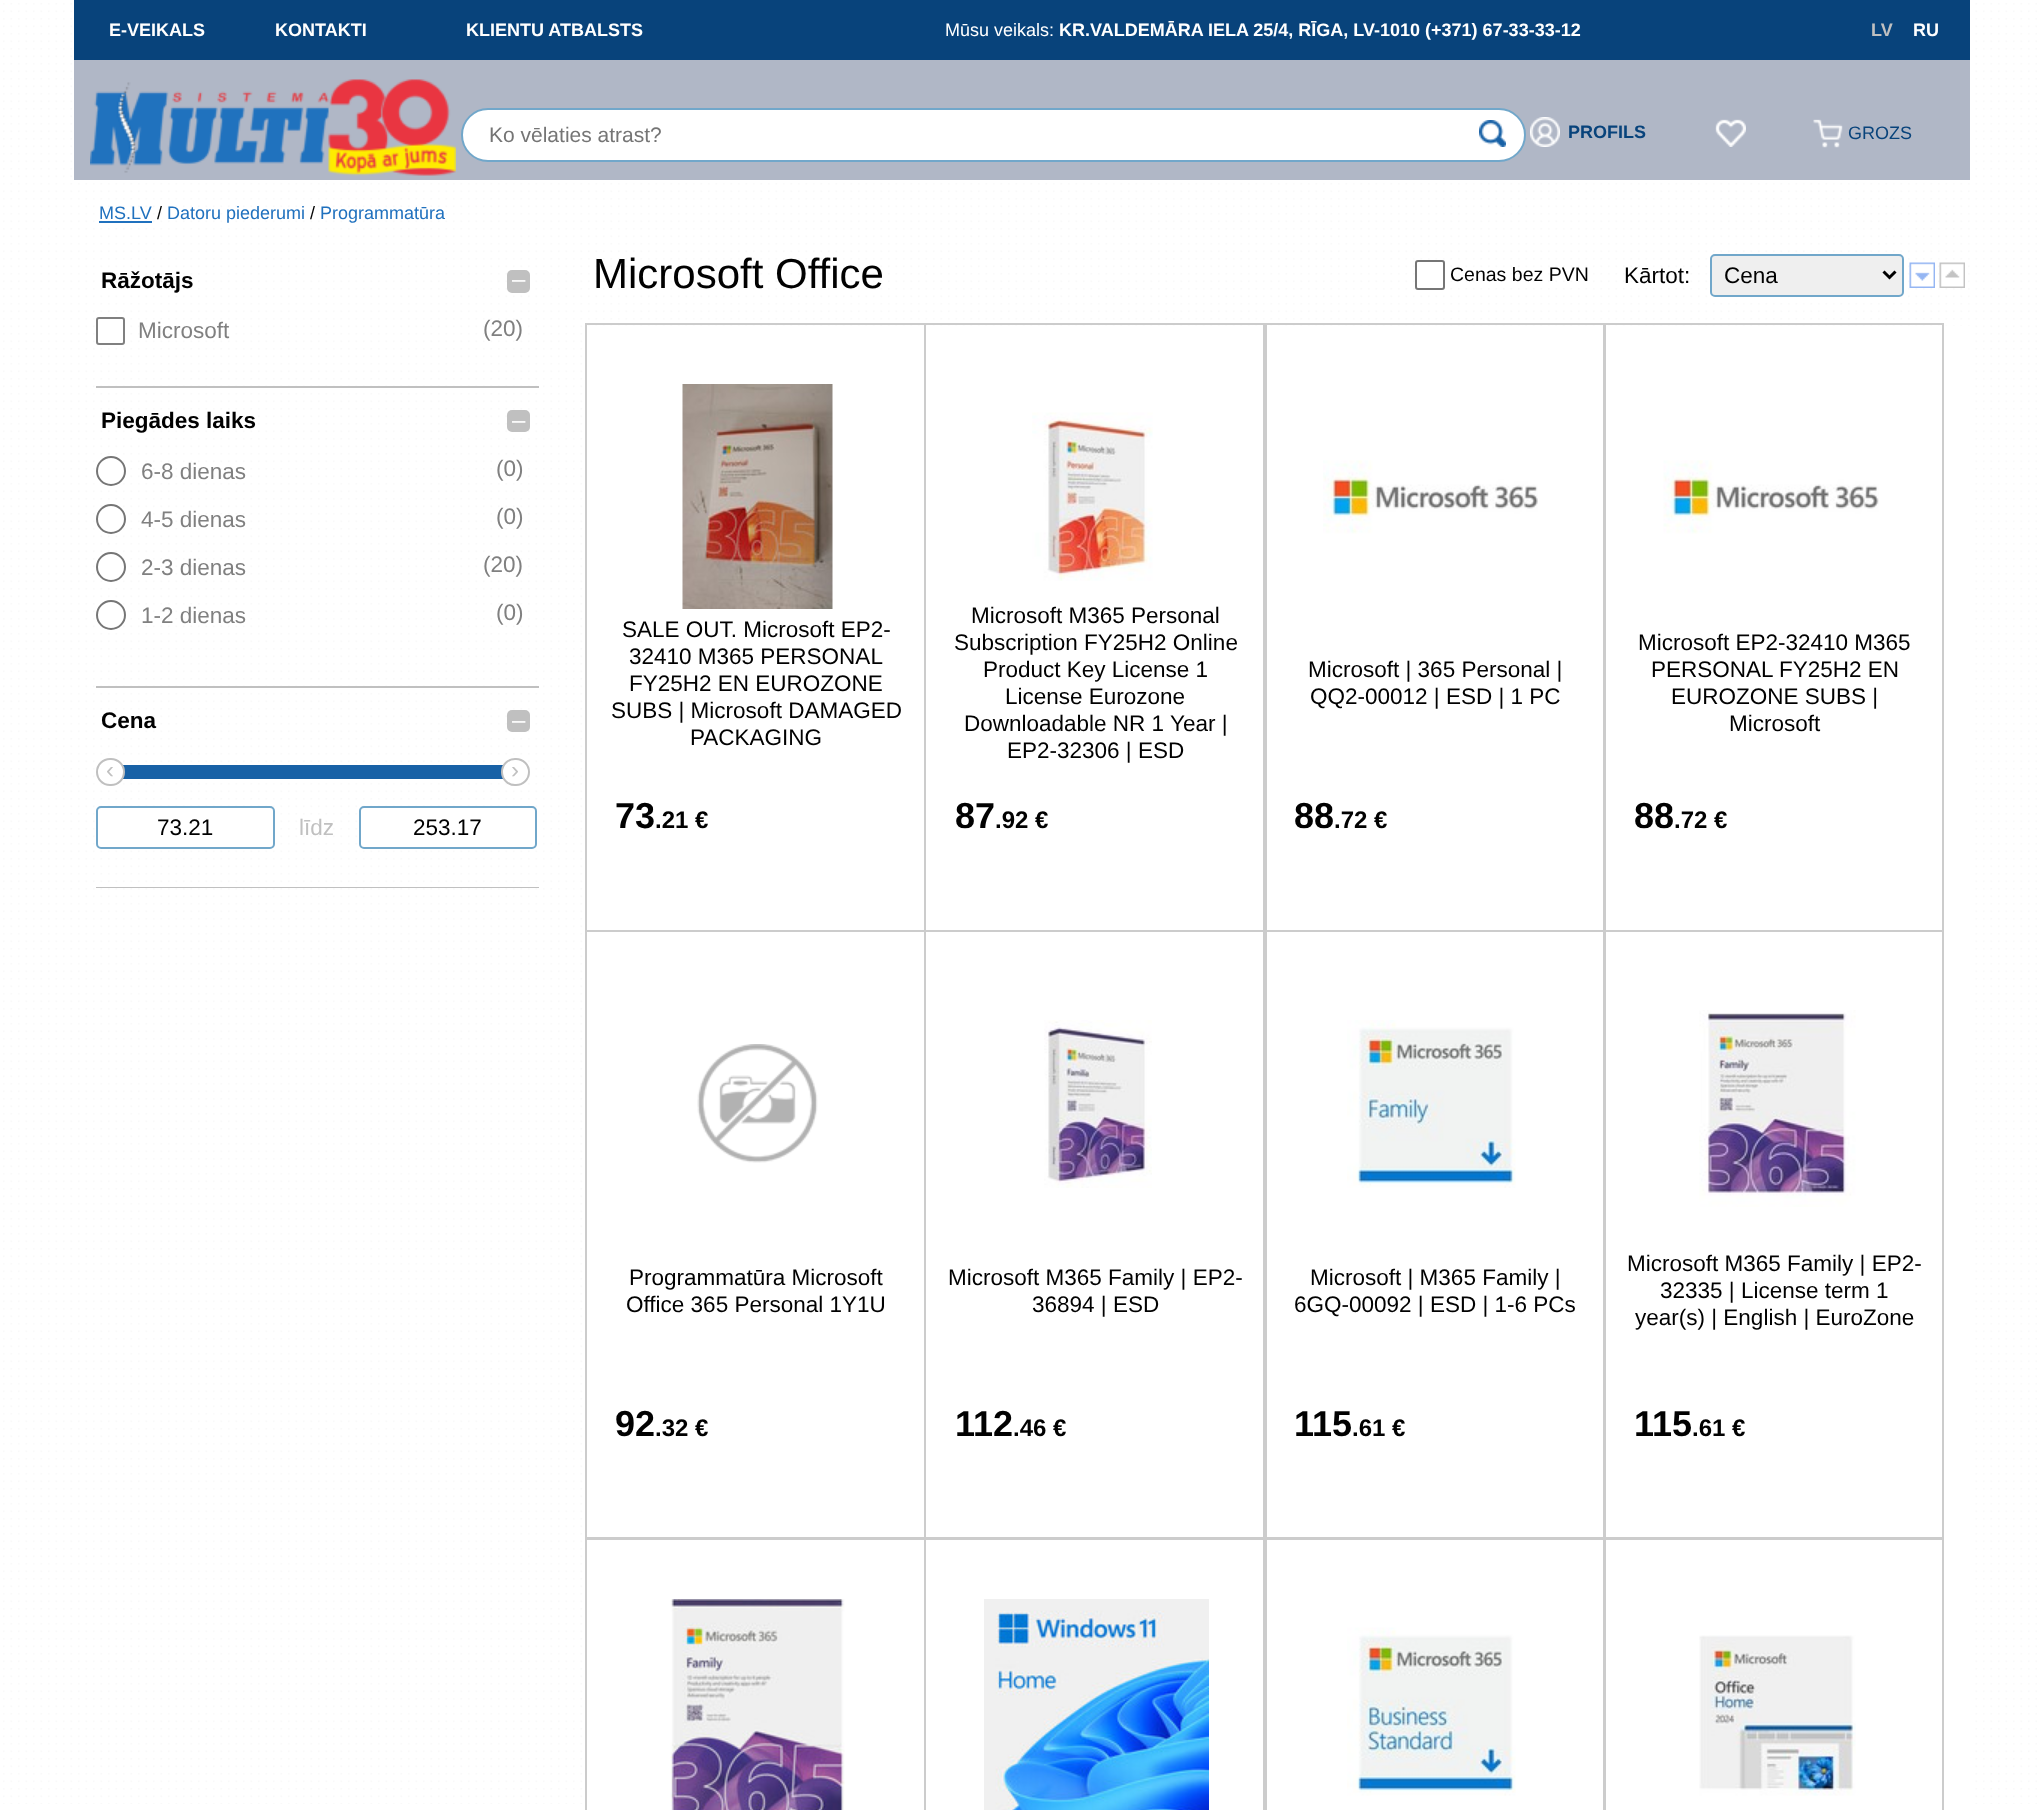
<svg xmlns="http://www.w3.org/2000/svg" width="2043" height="1810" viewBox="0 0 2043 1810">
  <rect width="100%" height="100%" fill="#ffffff"/>
  <image x="3" y="3" width="2034" height="1801" href="img1.png"/>
  <rect x="74" y="0" width="1896" height="60" fill="#08437b"/>
  <text x="109" y="36" font-family="Liberation Sans" font-size="18" font-weight="bold" fill="#ffffff">E-VEIKALS</text>
  <text x="275" y="36" font-family="Liberation Sans" font-size="18" font-weight="bold" fill="#ffffff">KONTAKTI</text>
  <text x="466" y="36" font-family="Liberation Sans" font-size="18" font-weight="bold" fill="#ffffff">KLIENTU ATBALSTS</text>
  <text x="945" y="36" font-family="Liberation Sans" font-size="18" fill="#ffffff">Mūsu veikals:</text>
  <text x="1059" y="36" font-family="Liberation Sans" font-size="18" font-weight="bold" fill="#ffffff">KR.VALDEMĀRA IELA 25/4, RĪGA, LV-1010 (+371) 67-33-33-12</text>
  <text x="1871" y="36" font-family="Liberation Sans" font-size="18" font-weight="bold" fill="#c0c0c0">LV</text>
  <text x="1913" y="36" font-family="Liberation Sans" font-size="18" font-weight="bold" fill="#ffffff">RU</text>
  <rect x="74" y="60" width="1896" height="120" fill="#b0b7c6"/>
  <image x="90" y="79" width="366" height="97" href="img2.png"/>
  <rect x="462" y="109" width="1063" height="52" rx="26" fill="#ffffff" stroke="#71a7ca" stroke-width="2"/>
  <text x="489" y="142" font-family="Liberation Sans" font-size="21" fill="#757575">Ko vēlaties atrast?</text>
  <image x="1479" y="120" width="27" height="27" href="img3.png"/>
  <image x="1530" y="117" width="30" height="30" href="img4.png"/>
  <text x="1568" y="138" font-family="Liberation Sans" font-size="18" font-weight="bold" fill="#08437b">PROFILS</text>
  <image x="1715" y="119" width="31" height="28" href="img5.png"/>
  <image x="1813" y="119" width="30" height="29" href="img6.png"/>
  <text x="1848" y="139" font-family="Liberation Sans" font-size="18" fill="#08437b">GROZS</text>
  <text x="99" y="219" font-family="Liberation Sans" font-size="18" fill="#2071be">MS.LV</text>
  <rect x="99" y="221" width="53" height="2" fill="#2071be"/>
  <text x="157" y="219" font-family="Liberation Sans" font-size="18" fill="#010101">/</text>
  <text x="167" y="219" font-family="Liberation Sans" font-size="18" fill="#2071be">Datoru piederumi</text>
  <text x="310" y="219" font-family="Liberation Sans" font-size="18" fill="#010101">/</text>
  <text x="320" y="219" font-family="Liberation Sans" font-size="18" fill="#2071be">Programmatūra</text>
  <text x="101" y="288" font-family="Liberation Sans" font-size="22.5" font-weight="bold" fill="#010101">Rāžotājs</text>
  <rect x="507" y="270" width="23" height="23" rx="5" fill="#c0c0c0"/>
  <text x="512" y="287" font-family="Liberation Sans" font-size="24" fill="#ffffff">–</text>
  <rect x="97" y="318" width="27" height="26" rx="2" fill="#ffffff" stroke="#808080" stroke-width="2"/>
  <text x="138" y="338" font-family="Liberation Sans" font-size="22.5" fill="#808080">Microsoft</text>
  <text x="483" y="336" font-family="Liberation Sans" font-size="22.5" fill="#808080">(20)</text>
  <rect x="96" y="386" width="443" height="2" fill="#c0c0c0"/>
  <text x="101" y="428" font-family="Liberation Sans" font-size="22.5" font-weight="bold" fill="#010101">Piegādes laiks</text>
  <rect x="507" y="410" width="23" height="22" rx="5" fill="#c0c0c0"/>
  <text x="512" y="428" font-family="Liberation Sans" font-size="24" fill="#ffffff">–</text>
  <circle cx="111" cy="471" r="14" fill="#ffffff" stroke="#767676" stroke-width="2"/>
  <text x="141" y="479" font-family="Liberation Sans" font-size="22.5" fill="#808080">6-8 dienas</text>
  <text x="496" y="476" font-family="Liberation Sans" font-size="22.5" fill="#808080">(0)</text>
  <circle cx="111" cy="519" r="14" fill="#ffffff" stroke="#767676" stroke-width="2"/>
  <text x="141" y="527" font-family="Liberation Sans" font-size="22.5" fill="#808080">4-5 dienas</text>
  <text x="496" y="524" font-family="Liberation Sans" font-size="22.5" fill="#808080">(0)</text>
  <circle cx="111" cy="567" r="14" fill="#ffffff" stroke="#767676" stroke-width="2"/>
  <text x="141" y="575" font-family="Liberation Sans" font-size="22.5" fill="#808080">2-3 dienas</text>
  <text x="483" y="572" font-family="Liberation Sans" font-size="22.5" fill="#808080">(20)</text>
  <circle cx="111" cy="615" r="14" fill="#ffffff" stroke="#767676" stroke-width="2"/>
  <text x="141" y="623" font-family="Liberation Sans" font-size="22.5" fill="#808080">1-2 dienas</text>
  <text x="496" y="620" font-family="Liberation Sans" font-size="22.5" fill="#808080">(0)</text>
  <rect x="96" y="686" width="443" height="2" fill="#c0c0c0"/>
  <text x="101" y="728" font-family="Liberation Sans" font-size="22.5" font-weight="bold" fill="#010101">Cena</text>
  <rect x="507" y="710" width="23" height="22" rx="5" fill="#c0c0c0"/>
  <text x="512" y="728" font-family="Liberation Sans" font-size="24" fill="#ffffff">–</text>
  <rect x="123" y="765" width="380" height="14" fill="#1861a6"/>
  <rect x="97" y="759" width="27" height="26" rx="13" fill="#ffffff" stroke="#c0c0c0" stroke-width="2"/>
  <text x="106" y="778" font-family="Liberation Sans" font-size="24" fill="#c0c0c0">‹</text>
  <rect x="502" y="759" width="27" height="26" rx="13" fill="#ffffff" stroke="#c0c0c0" stroke-width="2"/>
  <text x="511" y="778" font-family="Liberation Sans" font-size="24" fill="#c0c0c0">›</text>
  <rect x="97" y="807" width="177" height="41" rx="4" fill="#ffffff" stroke="#71a7ca" stroke-width="2"/>
  <text x="157" y="835" font-family="Liberation Sans" font-size="22.5" fill="#010101">73.21</text>
  <text x="299" y="835" font-family="Liberation Sans" font-size="22.5" fill="#c0c0c0">līdz</text>
  <rect x="360" y="807" width="176" height="41" rx="4" fill="#ffffff" stroke="#71a7ca" stroke-width="2"/>
  <text x="413" y="835" font-family="Liberation Sans" font-size="22.5" fill="#010101">253.17</text>
  <rect x="96" y="887" width="443" height="1" fill="#c0c0c0"/>
  <text x="593" y="288" font-family="Liberation Sans" font-size="42" fill="#010101">Microsoft Office</text>
  <rect x="1416" y="261" width="28" height="28" rx="2" fill="#ffffff" stroke="#767676" stroke-width="2"/>
  <text x="1450" y="281" font-family="Liberation Sans" font-size="19.5" fill="#010101">Cenas bez PVN</text>
  <text x="1624" y="283" font-family="Liberation Sans" font-size="22.5" fill="#010101">Kārtot:</text>
  <rect x="1711" y="255" width="192" height="41" rx="4" fill="#efefef" stroke="#71a7ca" stroke-width="2"/>
  <path d="M1883.5 271.5L1889.5 277.5L1895.5 271.5" fill="none" stroke="#000000" stroke-width="3"/>
  <text x="1724" y="283" font-family="Liberation Sans" font-size="22.5" fill="#010101">Cena</text>
  <image x="1909" y="262" width="26" height="26" href="img7.png"/>
  <image x="1939" y="262" width="26" height="26" href="img8.png"/>
  <rect x="588" y="326" width="1382" height="1478" fill="#ffffff"/>
  <rect x="586" y="324" width="339" height="607" fill="none" stroke="#cccccc" stroke-width="2"/>
  <image x="682" y="384" width="151" height="225" href="img9.png"/>
  <text x="622" y="637" font-family="Liberation Sans" font-size="22.5" fill="#010101">SALE OUT. Microsoft EP2-</text>
  <text x="629" y="664" font-family="Liberation Sans" font-size="22.5" fill="#010101">32410 M365 PERSONAL</text>
  <text x="629" y="691" font-family="Liberation Sans" font-size="22.5" fill="#010101">FY25H2 EN EUROZONE</text>
  <text x="611" y="718" font-family="Liberation Sans" font-size="22.5" fill="#010101">SUBS | Microsoft DAMAGED</text>
  <text x="690" y="745" font-family="Liberation Sans" font-size="22.5" fill="#010101">PACKAGING</text>
  <text x="615" y="828" font-family="Liberation Sans" font-size="36" font-weight="bold" fill="#010101">73</text>
  <text x="655" y="828" font-family="Liberation Sans" font-size="24" font-weight="bold" fill="#010101">.21 €</text>
  <rect x="925" y="324" width="339" height="607" fill="none" stroke="#cccccc" stroke-width="2"/>
  <image x="1032" y="412" width="121" height="169" href="img10.png"/>
  <text x="971" y="623" font-family="Liberation Sans" font-size="22.5" fill="#010101">Microsoft M365 Personal</text>
  <text x="954" y="650" font-family="Liberation Sans" font-size="22.5" fill="#010101">Subscription FY25H2 Online</text>
  <text x="983" y="677" font-family="Liberation Sans" font-size="22.5" fill="#010101">Product Key License 1</text>
  <text x="1005" y="704" font-family="Liberation Sans" font-size="22.5" fill="#010101">License Eurozone</text>
  <text x="964" y="731" font-family="Liberation Sans" font-size="22.5" fill="#010101">Downloadable NR 1 Year |</text>
  <text x="1007" y="758" font-family="Liberation Sans" font-size="22.5" fill="#010101">EP2-32306 | ESD</text>
  <text x="955" y="828" font-family="Liberation Sans" font-size="36" font-weight="bold" fill="#010101">87</text>
  <text x="995" y="828" font-family="Liberation Sans" font-size="24" font-weight="bold" fill="#010101">.92 €</text>
  <rect x="1266" y="324" width="338" height="607" fill="none" stroke="#cccccc" stroke-width="2"/>
  <image x="1323" y="460" width="215" height="74" href="img11.png"/>
  <text x="1308" y="677" font-family="Liberation Sans" font-size="22.5" fill="#010101">Microsoft | 365 Personal |</text>
  <text x="1310" y="704" font-family="Liberation Sans" font-size="22.5" fill="#010101">QQ2-00012 | ESD | 1 PC</text>
  <text x="1294" y="828" font-family="Liberation Sans" font-size="36" font-weight="bold" fill="#010101">88</text>
  <text x="1334" y="828" font-family="Liberation Sans" font-size="24" font-weight="bold" fill="#010101">.72 €</text>
  <rect x="1605" y="324" width="338" height="607" fill="none" stroke="#cccccc" stroke-width="2"/>
  <image x="1663" y="460" width="216" height="74" href="img12.png"/>
  <text x="1638" y="650" font-family="Liberation Sans" font-size="22.5" fill="#010101">Microsoft EP2-32410 M365</text>
  <text x="1651" y="677" font-family="Liberation Sans" font-size="22.5" fill="#010101">PERSONAL FY25H2 EN</text>
  <text x="1671" y="704" font-family="Liberation Sans" font-size="22.5" fill="#010101">EUROZONE SUBS |</text>
  <text x="1729" y="731" font-family="Liberation Sans" font-size="22.5" fill="#010101">Microsoft</text>
  <text x="1634" y="828" font-family="Liberation Sans" font-size="36" font-weight="bold" fill="#010101">88</text>
  <text x="1674" y="828" font-family="Liberation Sans" font-size="24" font-weight="bold" fill="#010101">.72 €</text>
  <rect x="586" y="931" width="339" height="607" fill="none" stroke="#cccccc" stroke-width="2"/>
  <image x="697" y="1044" width="121" height="119" href="img13.png"/>
  <text x="629" y="1285" font-family="Liberation Sans" font-size="22.5" fill="#010101">Programmatūra Microsoft</text>
  <text x="626" y="1312" font-family="Liberation Sans" font-size="22.5" fill="#010101">Office 365 Personal 1Y1U</text>
  <text x="615" y="1436" font-family="Liberation Sans" font-size="36" font-weight="bold" fill="#010101">92</text>
  <text x="655" y="1436" font-family="Liberation Sans" font-size="24" font-weight="bold" fill="#010101">.32 €</text>
  <rect x="925" y="931" width="339" height="607" fill="none" stroke="#cccccc" stroke-width="2"/>
  <image x="1044" y="1020" width="108" height="168" href="img14.png"/>
  <text x="948" y="1285" font-family="Liberation Sans" font-size="22.5" fill="#010101">Microsoft M365 Family | EP2-</text>
  <text x="1032" y="1312" font-family="Liberation Sans" font-size="22.5" fill="#010101">36894 | ESD</text>
  <text x="955" y="1436" font-family="Liberation Sans" font-size="36" font-weight="bold" fill="#010101">112</text>
  <text x="1013" y="1436" font-family="Liberation Sans" font-size="24" font-weight="bold" fill="#010101">.46 €</text>
  <rect x="1266" y="931" width="338" height="607" fill="none" stroke="#cccccc" stroke-width="2"/>
  <image x="1347" y="1020" width="169" height="168" href="img15.png"/>
  <text x="1310" y="1285" font-family="Liberation Sans" font-size="22.5" fill="#010101">Microsoft | M365 Family |</text>
  <text x="1294" y="1312" font-family="Liberation Sans" font-size="22.5" fill="#010101">6GQ-00092 | ESD | 1-6 PCs</text>
  <text x="1294" y="1436" font-family="Liberation Sans" font-size="36" font-weight="bold" fill="#010101">115</text>
  <text x="1352" y="1436" font-family="Liberation Sans" font-size="24" font-weight="bold" fill="#010101">.61 €</text>
  <rect x="1605" y="931" width="338" height="607" fill="none" stroke="#cccccc" stroke-width="2"/>
  <image x="1699" y="1010" width="157" height="197" href="img16.png"/>
  <text x="1627" y="1271" font-family="Liberation Sans" font-size="22.5" fill="#010101">Microsoft M365 Family | EP2-</text>
  <text x="1660" y="1298" font-family="Liberation Sans" font-size="22.5" fill="#010101">32335 | License term 1</text>
  <text x="1635" y="1325" font-family="Liberation Sans" font-size="22.5" fill="#010101">year(s) | English | EuroZone</text>
  <text x="1634" y="1436" font-family="Liberation Sans" font-size="36" font-weight="bold" fill="#010101">115</text>
  <text x="1692" y="1436" font-family="Liberation Sans" font-size="24" font-weight="bold" fill="#010101">.61 €</text>
  <rect x="586" y="1539" width="339" height="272" fill="none" stroke="#cccccc" stroke-width="2"/>
  <image x="670" y="1599" width="175" height="211" href="img17.png"/>
  <rect x="925" y="1539" width="339" height="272" fill="none" stroke="#cccccc" stroke-width="2"/>
  <image x="984" y="1599" width="225" height="211" href="img18.png"/>
  <rect x="1266" y="1539" width="338" height="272" fill="none" stroke="#cccccc" stroke-width="2"/>
  <image x="1347" y="1627" width="169" height="169" href="img19.png"/>
  <rect x="1605" y="1539" width="338" height="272" fill="none" stroke="#cccccc" stroke-width="2"/>
  <image x="1699" y="1635" width="157" height="161" href="img20.png"/>
</svg>
